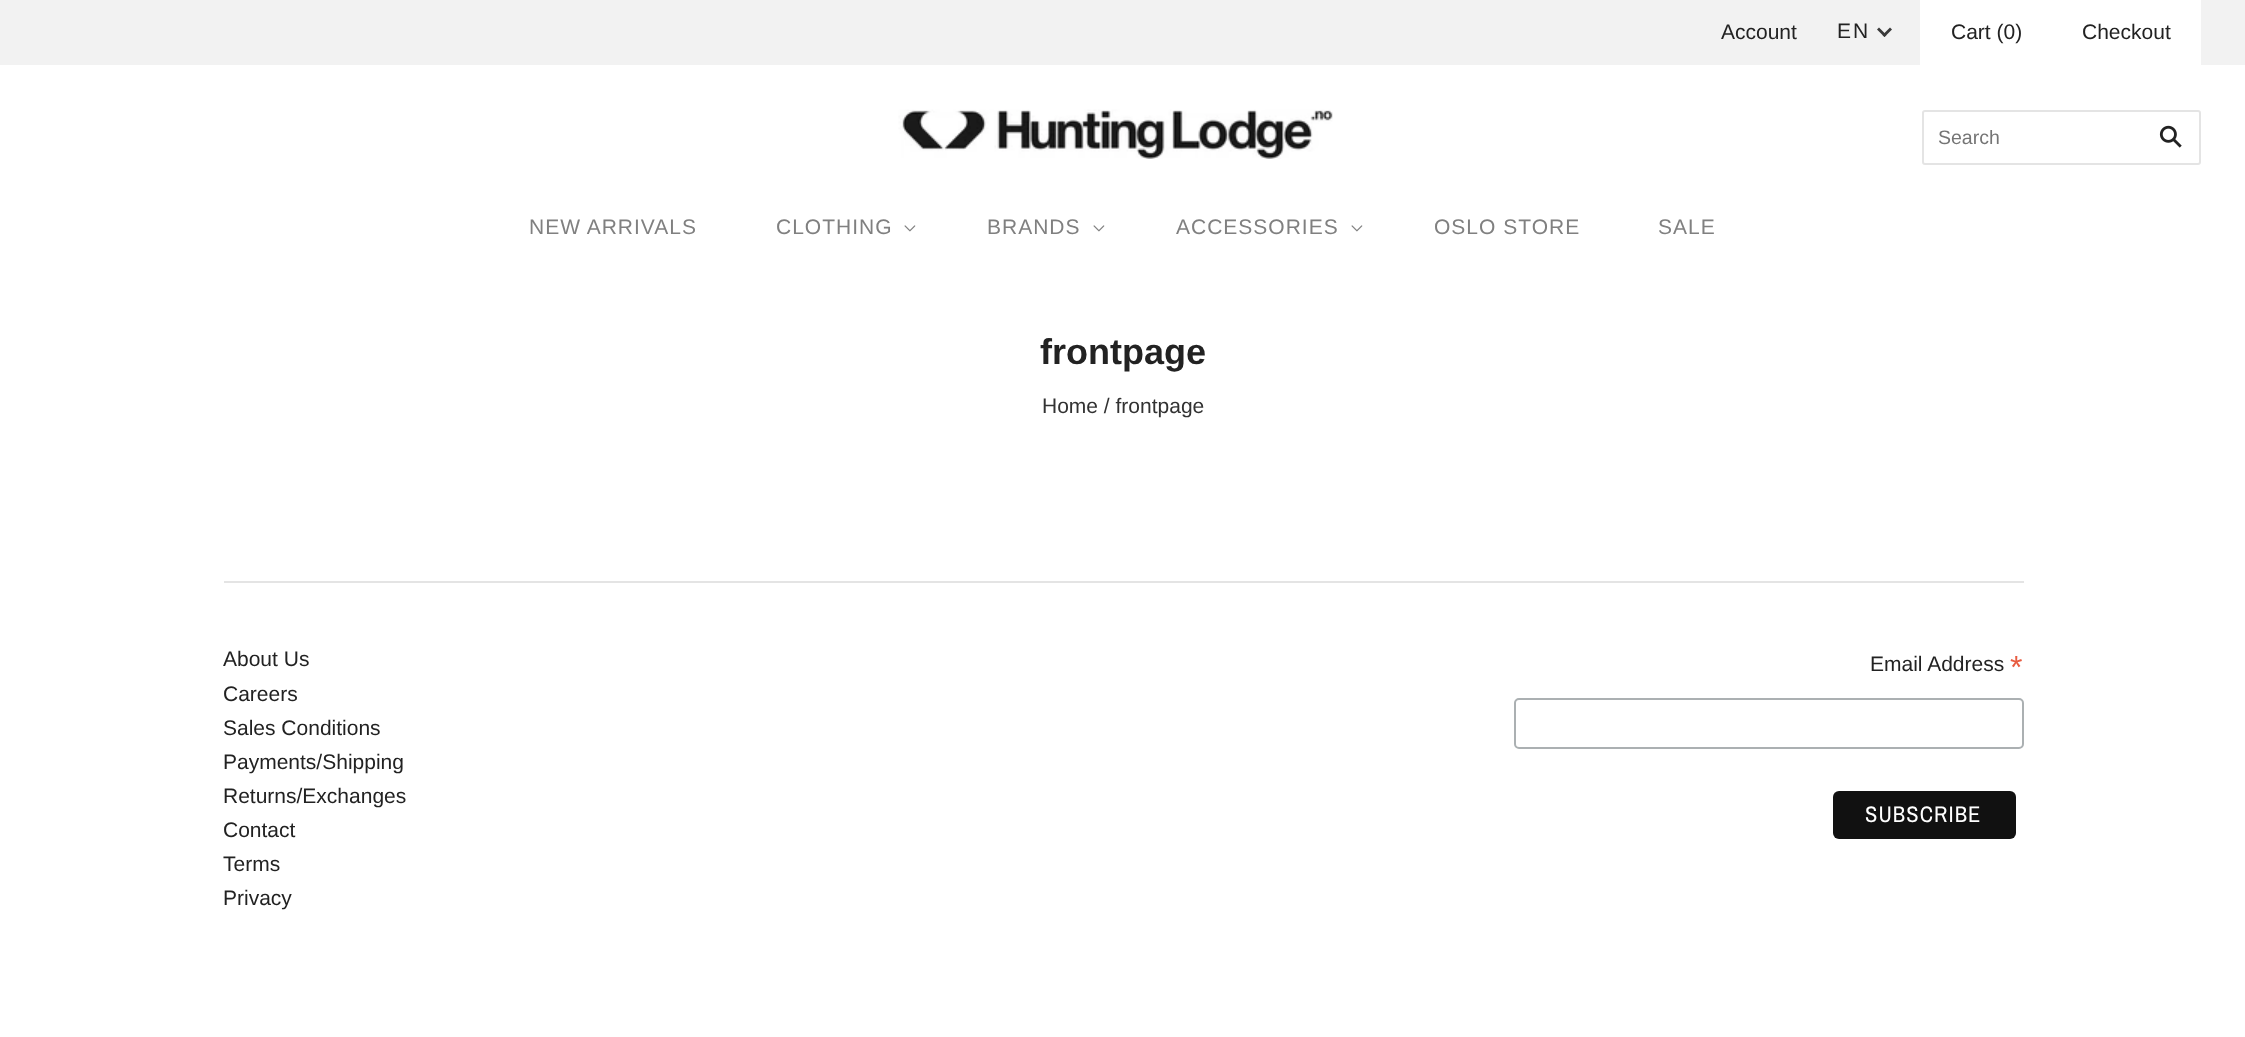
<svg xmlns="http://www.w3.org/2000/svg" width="2245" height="1037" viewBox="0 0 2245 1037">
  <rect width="100%" height="100%" fill="#ffffff"/>
  <rect x="0" y="0" width="2245" height="65" fill="#f2f2f2"/>
  <text x="1721" y="39" font-family="Liberation Sans" font-size="21" fill="#222222">Account</text>
  <text x="1837" y="38" font-family="Liberation Sans" font-size="21" letter-spacing="2" fill="#222222">EN</text>
  <path d="M1890 27.5L1892 29.5L1884.5 37L1882.5 35Z" fill="#3a3a3a"/>
  <path d="M1879 27.5L1886.5 35L1884.5 37L1877 29.5Z" fill="#3a3a3a"/>
  <rect x="1920" y="0" width="281" height="65" fill="#ffffff"/>
  <text x="1951" y="39" font-family="Liberation Sans" font-size="21" fill="#222222">Cart (0)</text>
  <text x="2082" y="39" font-family="Liberation Sans" font-size="21" fill="#222222">Checkout</text>
  <image x="898" y="109" width="435" height="50" href="img1.png"/>
  <rect x="1923" y="111" width="277" height="53" rx="2" fill="none" stroke="#e4e4e4" stroke-width="2"/>
  <text x="1938" y="144" font-family="Liberation Sans" font-size="19.5" fill="#757575">Search</text>
  <image x="2159" y="125" width="23" height="23" href="img2.png"/>
  <text x="529" y="234" font-family="Liberation Sans" font-size="21" letter-spacing="1" fill="#808080">NEW ARRIVALS</text>
  <text x="776" y="234" font-family="Liberation Sans" font-size="21" letter-spacing="1" fill="#808080">CLOTHING</text>
  <image x="904" y="225" width="12" height="7" href="img3.png"/>
  <text x="987" y="234" font-family="Liberation Sans" font-size="21" letter-spacing="1" fill="#808080">BRANDS</text>
  <image x="1093" y="225" width="12" height="7" href="img3.png"/>
  <text x="1176" y="234" font-family="Liberation Sans" font-size="21" letter-spacing="1" fill="#808080">ACCESSORIES</text>
  <image x="1351" y="225" width="12" height="7" href="img3.png"/>
  <text x="1434" y="234" font-family="Liberation Sans" font-size="21" letter-spacing="1" fill="#808080">OSLO STORE</text>
  <text x="1658" y="234" font-family="Liberation Sans" font-size="21" letter-spacing="1" fill="#808080">SALE</text>
  <text x="1040" y="364" font-family="Liberation Sans" font-size="36" font-weight="bold" fill="#222222">frontpage</text>
  <text x="1042" y="413" font-family="Liberation Sans" font-size="21" fill="#323232">Home / frontpage</text>
  <rect x="224" y="581" width="1800" height="2" fill="#e4e4e4"/>
  <text x="223" y="666" font-family="Liberation Sans" font-size="21" fill="#222222">About Us</text>
  <text x="223" y="701" font-family="Liberation Sans" font-size="21" fill="#222222">Careers</text>
  <text x="223" y="735" font-family="Liberation Sans" font-size="21" fill="#222222">Sales Conditions</text>
  <text x="223" y="769" font-family="Liberation Sans" font-size="21" fill="#222222">Payments/Shipping</text>
  <text x="223" y="803" font-family="Liberation Sans" font-size="21" fill="#222222">Returns/Exchanges</text>
  <text x="223" y="837" font-family="Liberation Sans" font-size="21" fill="#222222">Contact</text>
  <text x="223" y="871" font-family="Liberation Sans" font-size="21" fill="#222222">Terms</text>
  <text x="223" y="905" font-family="Liberation Sans" font-size="21" fill="#222222">Privacy</text>
  <text x="1870" y="671" font-family="Liberation Sans" font-size="21" fill="#222222">Email Address</text>
  <text x="2010" y="678" font-family="Liberation Sans" font-size="32" fill="#e85c41">*</text>
  <rect x="1515" y="699" width="508" height="49" rx="4" fill="none" stroke="#abb0b2" stroke-width="2"/>
  <rect x="1833" y="791" width="183" height="48" rx="6" fill="#111111"/>
  <text x="1865" y="822" font-family="Archivo Narrow" font-size="22.5" letter-spacing="1.1" fill="#ffffff">SUBSCRIBE</text>
</svg>
